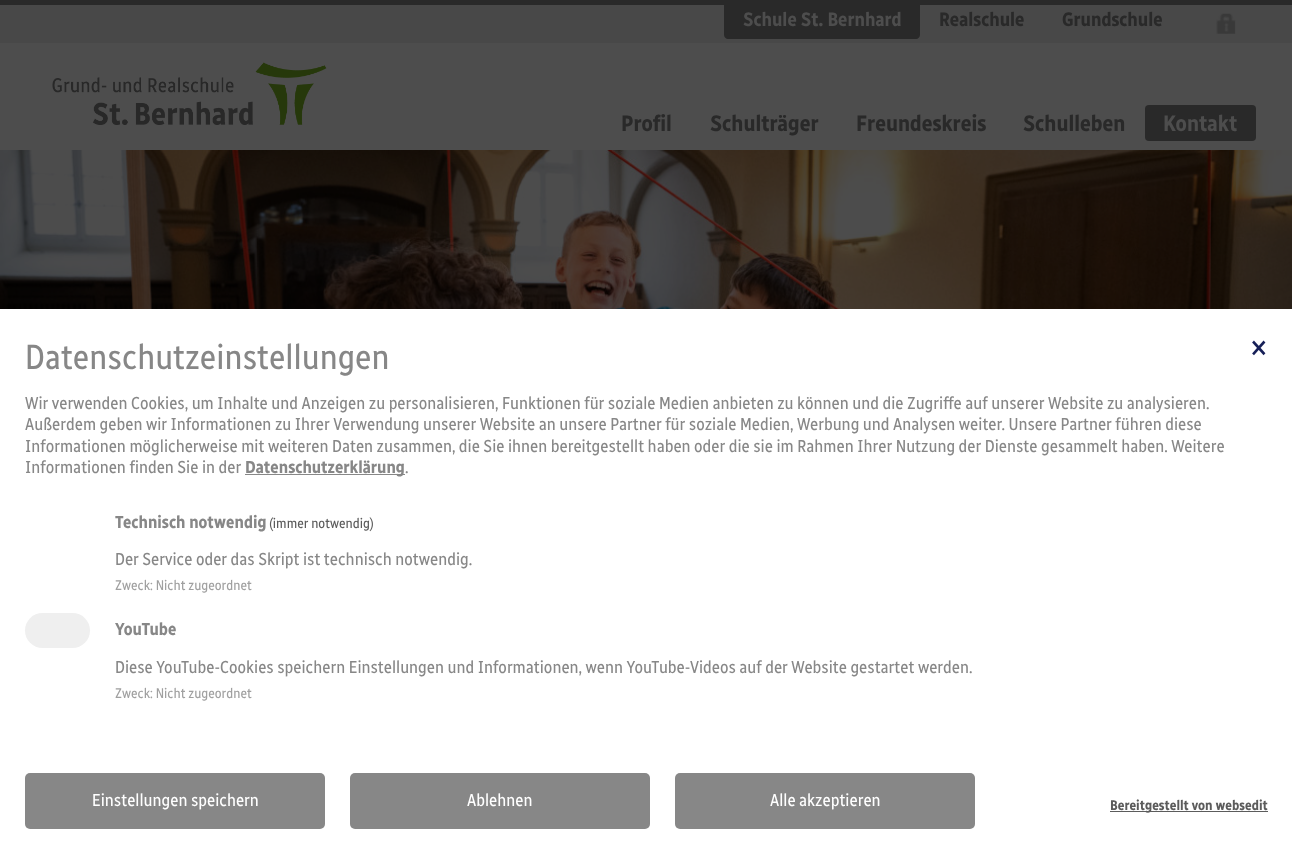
<svg xmlns="http://www.w3.org/2000/svg" width="1292" height="855" viewBox="0 0 1292 855">
  <rect width="100%" height="100%" fill="#4d4d4d"/>
  <rect x="0" y="5" width="1292" height="38" fill="#484848"/>
  <rect x="0" y="0" width="1292" height="5" fill="#292929"/>
  <path d="M724 5H920V35C920 37 918 39 916 39H728C726 39 724 37 724 35Z" fill="#292929"/>
  <text x="743" y="26" font-family="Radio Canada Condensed" font-size="19.5" font-weight="bold" fill="#4d4d4d">Schule St. Bernhard</text>
  <text x="939" y="26" font-family="Radio Canada Condensed" font-size="19.5" font-weight="bold" fill="#292929">Realschule</text>
  <text x="1062" y="26" font-family="Radio Canada Condensed" font-size="19.5" font-weight="bold" fill="#292929">Grundschule</text>
  <image x="1216" y="13" width="20" height="21" href="img1.png"/>
  <image x="52" y="62" width="275" height="63" href="img2.png"/>
  <text x="621" y="131" font-family="Radio Canada Condensed" font-size="22.5" font-weight="bold" fill="#292929">Profil</text>
  <text x="710" y="131" font-family="Radio Canada Condensed" font-size="22.5" font-weight="bold" fill="#292929">Schulträger</text>
  <text x="856" y="131" font-family="Radio Canada Condensed" font-size="22.5" font-weight="bold" fill="#292929">Freundeskreis</text>
  <text x="1023" y="131" font-family="Radio Canada Condensed" font-size="22.5" font-weight="bold" fill="#292929">Schulleben</text>
  <rect x="1145" y="105" width="111" height="36" rx="4" fill="#292929"/>
  <text x="1163" y="131" font-family="Radio Canada Condensed" font-size="22.5" font-weight="bold" fill="#4d4d4d">Kontakt</text>
  <image x="0" y="150" width="1292" height="159" href="img3.png"/>
  <rect x="0" y="309" width="1292" height="546" fill="#ffffff"/>
  <text x="25" y="369" font-family="Radio Canada Condensed" font-size="35" fill="#878787">Datenschutzeinstellungen</text>
  <text x="1250" y="358" font-family="Radio Canada Condensed" font-size="35" fill="#161f57">×</text>
  <text x="25" y="409" font-family="Radio Canada Condensed" font-size="17.5" fill="#878787">Wir verwenden Cookies, um Inhalte und Anzeigen zu personalisieren, Funktionen für soziale Medien anbieten zu können und die Zugriffe auf unserer Website zu analysieren.</text>
  <text x="25" y="430" font-family="Radio Canada Condensed" font-size="17.5" fill="#878787">Außerdem geben wir Informationen zu Ihrer Verwendung unserer Website an unsere Partner für soziale Medien, Werbung und Analysen weiter. Unsere Partner führen diese</text>
  <text x="25" y="452" font-family="Radio Canada Condensed" font-size="17.5" fill="#878787">Informationen möglicherweise mit weiteren Daten zusammen, die Sie ihnen bereitgestellt haben oder die sie im Rahmen Ihrer Nutzung der Dienste gesammelt haben. Weitere</text>
  <text x="25" y="473" font-family="Radio Canada Condensed" font-size="17.5" fill="#878787">Informationen finden Sie in der</text>
  <rect x="245" y="474" width="160" height="1" fill="#878787"/>
  <text x="245" y="473" font-family="Radio Canada Condensed" font-size="17.5" font-weight="bold" fill="#878787">Datenschutzerklärung</text>
  <text x="405" y="473" font-family="Radio Canada Condensed" font-size="17.5" fill="#878787">.</text>
  <text x="115" y="528" font-family="Radio Canada Condensed" font-size="17.5" font-weight="bold" fill="#878787">Technisch notwendig</text>
  <text x="269" y="528" font-family="Radio Canada Condensed" font-size="14" fill="#5c5c5c">(immer notwendig)</text>
  <text x="115" y="565" font-family="Radio Canada Condensed" font-size="17.5" fill="#878787">Der Service oder das Skript ist technisch notwendig.</text>
  <text x="115" y="590" font-family="Radio Canada Condensed" font-size="14" fill="#a0a0a0">Zweck: Nicht zugeordnet</text>
  <rect x="25" y="613" width="65" height="35" rx="17.5" fill="#efefef"/>
  <text x="115" y="635" font-family="Radio Canada Condensed" font-size="17.5" font-weight="bold" fill="#878787">YouTube</text>
  <text x="115" y="673" font-family="Radio Canada Condensed" font-size="17.5" fill="#878787">Diese YouTube-Cookies speichern Einstellungen und Informationen, wenn YouTube-Videos auf der Website gestartet werden.</text>
  <text x="115" y="698" font-family="Radio Canada Condensed" font-size="14" fill="#a0a0a0">Zweck: Nicht zugeordnet</text>
  <rect x="25" y="773" width="300" height="56" rx="5" fill="#878787"/>
  <text x="92" y="806" font-family="Radio Canada Condensed" font-size="17.5" fill="#ffffff">Einstellungen speichern</text>
  <rect x="350" y="773" width="300" height="56" rx="5" fill="#878787"/>
  <text x="467" y="806" font-family="Radio Canada Condensed" font-size="17.5" fill="#ffffff">Ablehnen</text>
  <rect x="675" y="773" width="300" height="56" rx="5" fill="#878787"/>
  <text x="770" y="806" font-family="Radio Canada Condensed" font-size="17.5" fill="#ffffff">Alle akzeptieren</text>
  <rect x="1110" y="811" width="158" height="1" fill="#5c5c5c"/>
  <text x="1110" y="810" font-family="Radio Canada Condensed" font-size="14" font-weight="bold" fill="#5c5c5c">Bereitgestellt von websedit</text>
</svg>
